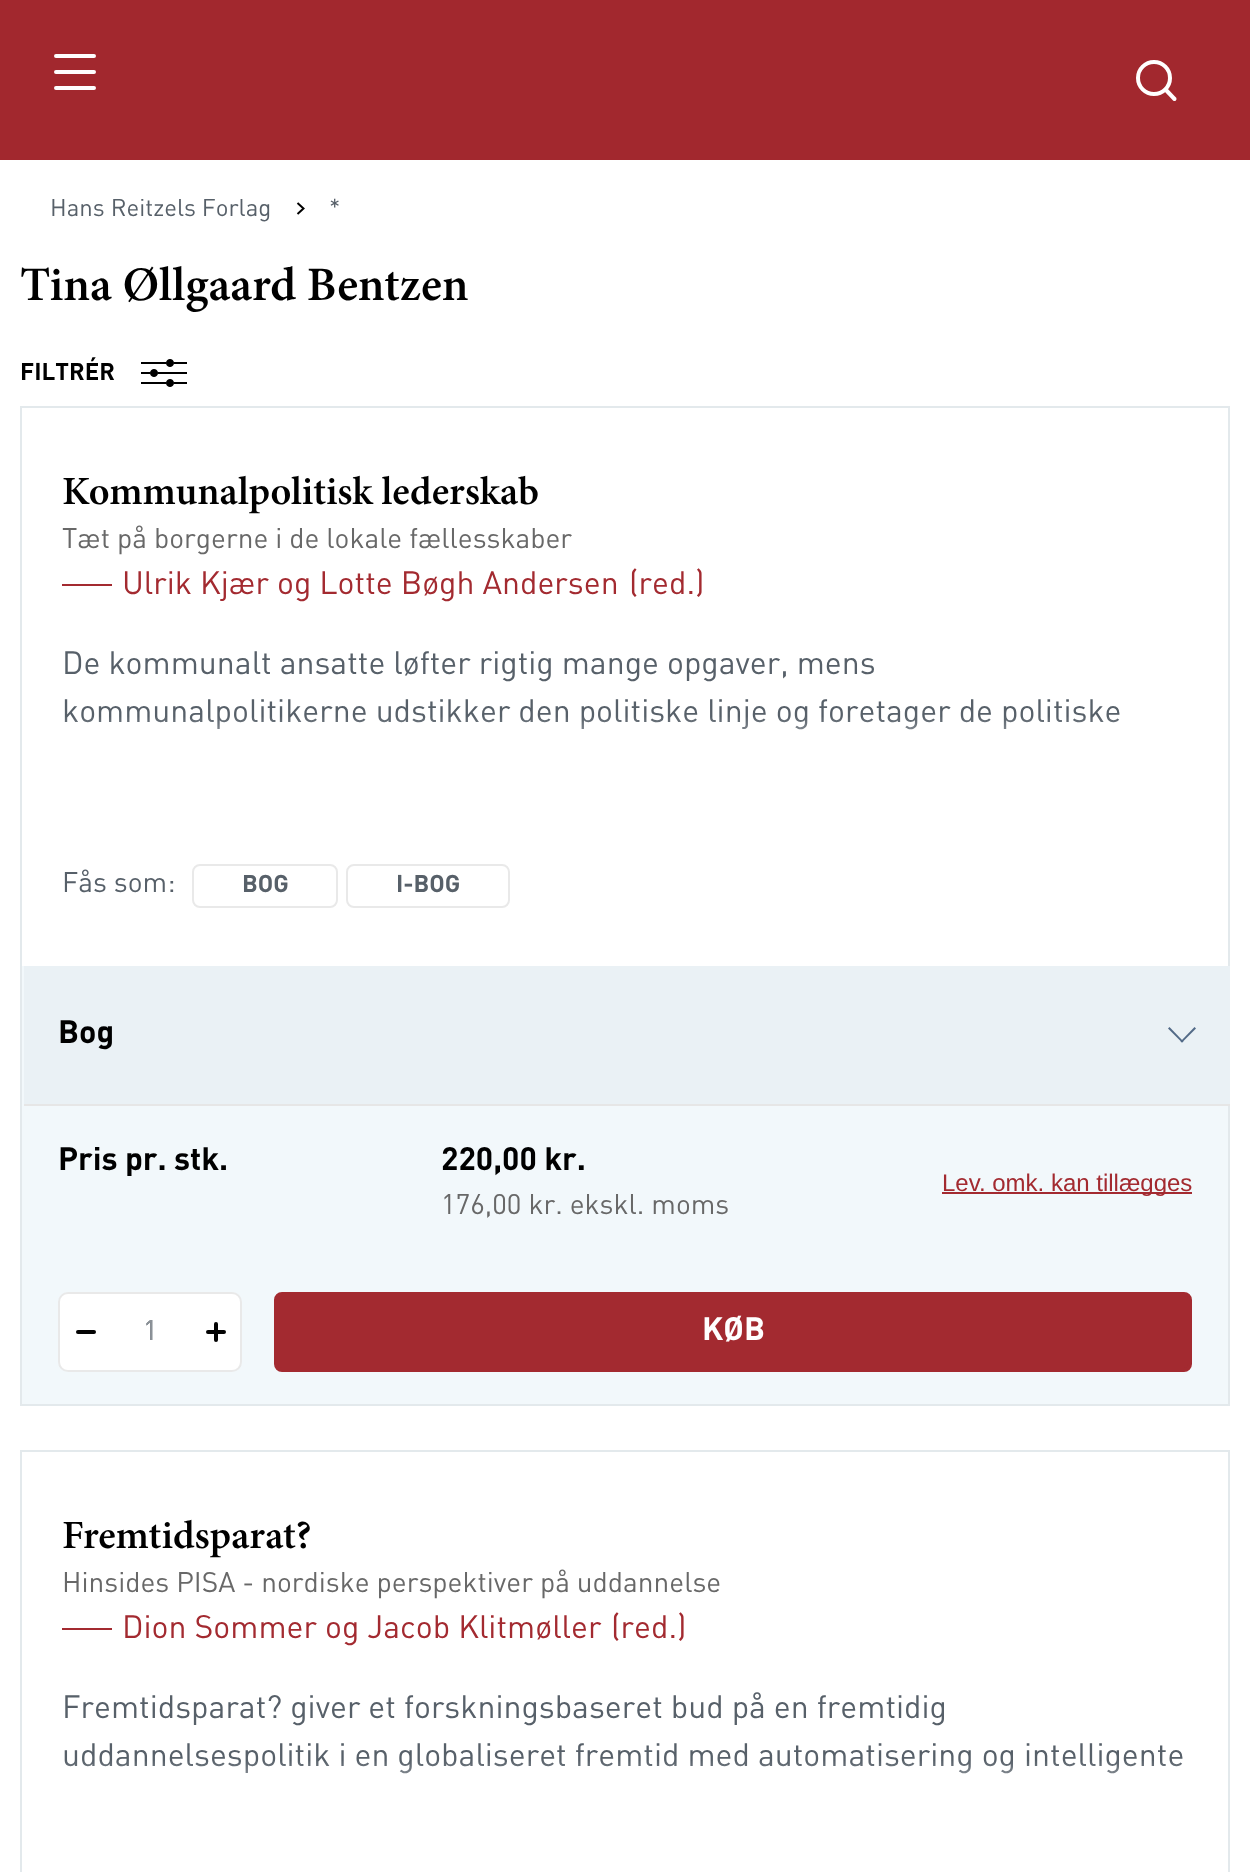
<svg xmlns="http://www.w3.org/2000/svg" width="1250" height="1872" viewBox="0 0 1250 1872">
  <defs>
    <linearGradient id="g1" gradientUnits="userSpaceOnUse" x1="625" y1="796" x2="625" y2="716"><stop offset="0.25" stop-color="#ffffff"/><stop offset="1" stop-color="#ffffff" stop-opacity="0"/></linearGradient>
    <linearGradient id="g2" gradientUnits="userSpaceOnUse" x1="625" y1="1840" x2="625" y2="1760"><stop offset="0.25" stop-color="#ffffff"/><stop offset="1" stop-color="#ffffff" stop-opacity="0"/></linearGradient>
  </defs>
  <rect width="100%" height="100%" fill="#ffffff"/>
  <rect x="0" y="0" width="1250" height="160" fill="#a2282e"/>
  <path d="M56 56H94M56 72H94M56 88H94" fill="none" stroke="#ffffff" stroke-width="4" stroke-linecap="round"/>
  <circle cx="1154" cy="78" r="16" fill="none" stroke="#ffffff" stroke-width="4"/>
  <path d="M1165.5 89.5L1174.5 99" fill="none" stroke="#ffffff" stroke-width="4" stroke-linecap="round"/>
  <text x="50" y="216" font-family="'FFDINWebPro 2'" font-size="24" fill="#576069">Hans Reitzels Forlag</text>
  <path d="M297.5 203L303.5 208.5L297.5 214" fill="none" stroke="#000000" stroke-width="2"/>
  <text x="329" y="216" font-family="'FFDINWebPro 2'" font-size="24" fill="#576069">*</text>
  <text x="20" y="300" font-family="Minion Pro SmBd" font-size="48" font-weight="600" fill="#000000">Tina Øllgaard Bentzen</text>
  <text x="20" y="380" font-family="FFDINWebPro" font-size="24" fill="#000000">FILTRÉR</text>
  <image x="141" y="359" width="46" height="28" href="img1.png"/>
  <rect x="21" y="407" width="1208" height="998" fill="none" stroke="#e3e9ec" stroke-width="2"/>
  <text x="62" y="504" font-family="Minion Pro SmBd" font-size="40" font-weight="600" fill="#000000">Kommunalpolitisk lederskab</text>
  <text x="62" y="548" font-family="'FFDINWebPro 2'" font-size="28" fill="#686868">Tæt på borgerne i de lokale fællesskaber</text>
  <rect x="62" y="584" width="50" height="2" fill="#a32a30"/>
  <text x="122" y="594" font-family="'FFDINWebPro 2'" font-size="32" fill="#a32a30">Ulrik Kjær og Lotte Bøgh Andersen</text>
  <text x="629" y="594" font-family="'FFDINWebPro 2'" font-size="32" fill="#a32a30">(red.)</text>
  <text x="62" y="674" font-family="'FFDINWebPro 2'" font-size="32" fill="#576069">De kommunalt ansatte løfter rigtig mange opgaver, mens</text>
  <text x="62" y="722" font-family="'FFDINWebPro 2'" font-size="32" fill="#576069">kommunalpolitikerne udstikker den politiske linje og foretager de politiske</text>
  <rect x="65" y="717" width="1054" height="13" fill="url(#g1)"/>
  <text x="62" y="892" font-family="'FFDINWebPro 2'" font-size="28" fill="#576069">Fås som:</text>
  <rect x="193" y="865" width="144" height="42" rx="7" fill="none" stroke="#e9e9e9" stroke-width="2"/>
  <text x="242" y="892" font-family="FFDINWebPro" font-size="24" fill="#576069">BOG</text>
  <rect x="347" y="865" width="162" height="42" rx="7" fill="none" stroke="#e9e9e9" stroke-width="2"/>
  <text x="396" y="892" font-family="FFDINWebPro" font-size="24" fill="#576069">I-BOG</text>
  <rect x="22" y="966" width="1206" height="438" fill="#f2f8fb"/>
  <rect x="24" y="966" width="1206" height="138" fill="#eaf1f5"/>
  <rect x="24" y="1104" width="1206" height="2" fill="#e6e6e6"/>
  <text x="58" y="1043" font-family="FFDINWebPro" font-size="32" fill="#000000">Bog</text>
  <path d="M1182 1042.5L1168 1028.5L1169.5 1027L1183.5 1041.5Z" fill="#526a87"/>
  <path d="M1182 1042.5L1180.5 1041.5L1194.5 1027L1196 1028.5Z" fill="#526a87"/>
  <text x="58" y="1170" font-family="FFDINWebPro" font-size="32" fill="#000000">Pris pr. stk.</text>
  <text x="441" y="1170" font-family="FFDINWebPro" font-size="32" fill="#000000">220,00 kr.</text>
  <text x="441" y="1214" font-family="'FFDINWebPro 2'" font-size="28" fill="#686868">176,00 kr. ekskl. moms</text>
  <rect x="942" y="1192" width="250" height="2" fill="#a32a30"/>
  <text x="942" y="1191" font-family="Liberation Sans" font-size="24" fill="#a32a30">Lev. omk. kan tillægges</text>
  <rect x="58" y="1292" width="184" height="80" rx="10" fill="#ffffff"/>
  <rect x="59" y="1293" width="182" height="78" rx="9" fill="none" stroke="#282828" stroke-opacity="0.1" stroke-width="2"/>
  <path d="M78 1332H94" fill="none" stroke="#030303" stroke-width="4" stroke-linecap="round"/>
  <text x="143" y="1340" font-family="'FFDINWebPro 2'" font-size="28" fill="#576069">1</text>
  <text x="143" y="1340" font-family="'FFDINWebPro 2'" font-size="28" fill="#8c9298">1</text>
  <path d="M216 1340V1324M208 1332H224" fill="none" stroke="#030303" stroke-width="4" stroke-linecap="round"/>
  <rect x="276" y="1294" width="914" height="76" rx="6" fill="#a32a30" stroke="#a32a30" stroke-width="4"/>
  <text x="702" y="1340" font-family="FFDINWebPro" font-size="32" fill="#ffffff">KØB</text>
  <rect x="21" y="1451" width="1208" height="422" fill="none" stroke="#e3e9ec" stroke-width="2"/>
  <text x="62" y="1548" font-family="Minion Pro SmBd" font-size="40" font-weight="600" fill="#000000">Fremtidsparat?</text>
  <text x="62" y="1592" font-family="'FFDINWebPro 2'" font-size="28" fill="#686868">Hinsides PISA - nordiske perspektiver på uddannelse</text>
  <rect x="62" y="1628" width="50" height="2" fill="#a32a30"/>
  <text x="122" y="1638" font-family="'FFDINWebPro 2'" font-size="32" fill="#a32a30">Dion Sommer og Jacob Klitmøller</text>
  <text x="611" y="1638" font-family="'FFDINWebPro 2'" font-size="32" fill="#a32a30">(red.)</text>
  <text x="62" y="1718" font-family="'FFDINWebPro 2'" font-size="32" fill="#576069">Fremtidsparat? giver et forskningsbaseret bud på en fremtidig</text>
  <text x="62" y="1766" font-family="'FFDINWebPro 2'" font-size="32" fill="#576069">uddannelsespolitik i en globaliseret fremtid med automatisering og intelligente</text>
  <rect x="65" y="1761" width="1117" height="13" fill="url(#g2)"/>
</svg>
